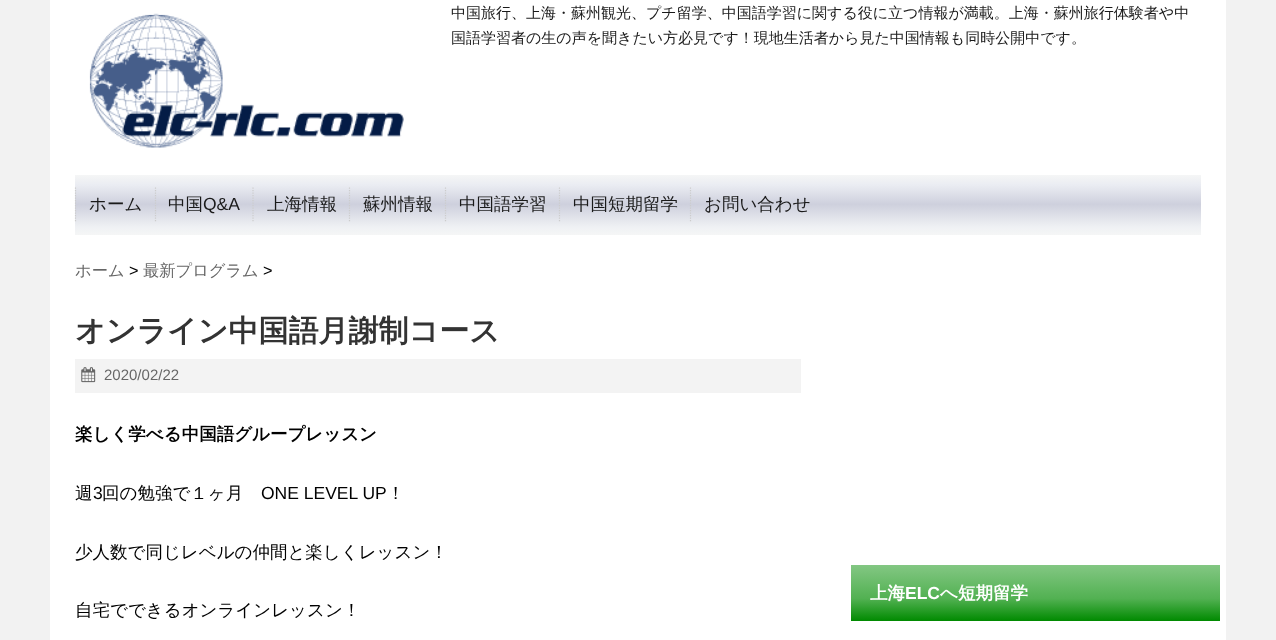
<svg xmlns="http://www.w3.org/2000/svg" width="1276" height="640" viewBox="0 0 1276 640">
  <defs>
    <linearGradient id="g1" gradientUnits="userSpaceOnUse" x1="638" y1="175" x2="638" y2="235"><stop offset="0" stop-color="#f5f6f6"/><stop offset="0.17" stop-color="#eaecf2"/><stop offset="0.49" stop-color="#ced0dd"/><stop offset="0.87" stop-color="#eff1f4"/><stop offset="1" stop-color="#f5f6f6"/></linearGradient>
    <linearGradient id="g2" gradientUnits="userSpaceOnUse" x1="1036" y1="565" x2="1036" y2="621"><stop offset="0" stop-color="#83c783"/><stop offset="0.6" stop-color="#52b152"/><stop offset="1" stop-color="#008a00"/></linearGradient>
  </defs>
  <rect width="100%" height="100%" fill="#f2f2f2"/>
  <rect x="50" y="0" width="1176" height="640" fill="#ffffff"/>
  <image x="89" y="13" width="315" height="135" href="img1.png"/>
  <text x="451" y="18" font-family="WenQuanYi Zen Hei" font-size="15" font-weight="500" fill="#1a1a1a">中国旅行、上海・蘇州観光、プチ留学、中国語学習に関する役に立つ情報が満載。上海・蘇州旅行体験者や中</text>
  <text x="451" y="43" font-family="WenQuanYi Zen Hei" font-size="15" font-weight="500" fill="#1a1a1a">国語学習者の生の声を聞きたい方必見です！現地生活者から見た中国情報も同時公開中です。</text>
  <rect x="75" y="175" width="1126" height="60" fill="url(#g1)"/>
  <path d="M75.5 187.5V222.5" fill="none" stroke="#cccccc" stroke-width="1.2" stroke-dasharray="1.25 1.25"/>
  <text x="89" y="210" font-family="WenQuanYi Zen Hei" font-size="17.5" font-weight="500" fill="#1a1a1a">ホーム</text>
  <path d="M155.5 187.5V222.5" fill="none" stroke="#cccccc" stroke-width="1.2" stroke-dasharray="1.25 1.25"/>
  <text x="168" y="210" font-family="WenQuanYi Zen Hei" font-size="17.5" font-weight="500" fill="#1a1a1a">中国</text>
  <text x="203" y="210" font-family="Liberation Sans" font-size="17.5" fill="#1a1a1a">Q&amp;A</text>
  <path d="M253 187.5V222.5" fill="none" stroke="#cccccc" stroke-width="1.2" stroke-dasharray="1.25 1.25"/>
  <text x="267" y="210" font-family="WenQuanYi Zen Hei" font-size="17.5" font-weight="500" fill="#1a1a1a">上海情報</text>
  <path d="M349.5 187.5V222.5" fill="none" stroke="#cccccc" stroke-width="1.2" stroke-dasharray="1.25 1.25"/>
  <text x="363" y="210" font-family="WenQuanYi Zen Hei" font-size="17.5" font-weight="500" fill="#1a1a1a">蘇州情報</text>
  <path d="M445.5 187.5V222.5" fill="none" stroke="#cccccc" stroke-width="1.2" stroke-dasharray="1.25 1.25"/>
  <text x="459" y="210" font-family="WenQuanYi Zen Hei" font-size="17.5" font-weight="500" fill="#1a1a1a">中国語学習</text>
  <path d="M559.5 187.5V222.5" fill="none" stroke="#cccccc" stroke-width="1.2" stroke-dasharray="1.25 1.25"/>
  <text x="573" y="210" font-family="WenQuanYi Zen Hei" font-size="17.5" font-weight="500" fill="#1a1a1a">中国短期留学</text>
  <path d="M690.5 187.5V222.5" fill="none" stroke="#cccccc" stroke-width="1.2" stroke-dasharray="1.25 1.25"/>
  <text x="704" y="210" font-family="WenQuanYi Zen Hei" font-size="17.5" font-weight="500" fill="#1a1a1a">お問い合わせ</text>
  <text x="75" y="276" font-family="WenQuanYi Zen Hei" font-size="16.25" font-weight="500" fill="#666666">ホーム</text>
  <text x="129" y="276" font-family="Liberation Sans" font-size="16.25" fill="#000000">&gt;</text>
  <text x="143" y="276" font-family="WenQuanYi Zen Hei" font-size="16.25" font-weight="500" fill="#666666">最新プログラム</text>
  <text x="263" y="276" font-family="Liberation Sans" font-size="16.25" fill="#000000">&gt;</text>
  <text x="75" y="341" font-family="WenQuanYi Zen Hei" font-size="30" font-weight="bold" fill="#333333">オンライン中国語月謝制コース</text>
  <rect x="75" y="359" width="726" height="34" fill="#f3f3f3"/>
  <image x="81" y="367" width="15" height="16" href="img2.png"/>
  <text x="104" y="380" font-family="Liberation Sans" font-size="15" fill="#666666">2020/02/22</text>
  <text x="75" y="440" font-family="WenQuanYi Zen Hei" font-size="17.5" font-weight="bold" fill="#000000">楽しく学べる中国語グループレッスン</text>
  <text x="75" y="499" font-family="WenQuanYi Zen Hei" font-size="17.5" font-weight="500" fill="#000000">週</text>
  <text x="93" y="499" font-family="Liberation Sans" font-size="17.5" fill="#000000">3</text>
  <text x="102" y="499" font-family="WenQuanYi Zen Hei" font-size="17.5" font-weight="500" fill="#000000">回の勉強で１ヶ月</text>
  <text x="261" y="499" font-family="Liberation Sans" font-size="17.5" fill="#000000">ONE LEVEL UP</text>
  <text x="387" y="499" font-family="WenQuanYi Zen Hei" font-size="17.5" font-weight="500" fill="#000000">！</text>
  <text x="75" y="558" font-family="WenQuanYi Zen Hei" font-size="17.5" font-weight="500" fill="#000000">少人数で同じレベルの仲間と楽しくレッスン！</text>
  <text x="75" y="616" font-family="WenQuanYi Zen Hei" font-size="17.5" font-weight="500" fill="#000000">自宅でできるオンラインレッスン！</text>
  <rect x="851" y="565" width="369" height="56" fill="url(#g2)"/>
  <text x="870" y="599" font-family="WenQuanYi Zen Hei" font-size="17.5" font-weight="bold" fill="#ffffff">上海</text>
  <text x="905" y="599" font-family="Liberation Sans" font-size="17.5" font-weight="bold" fill="#ffffff">ELC</text>
  <text x="940" y="599" font-family="WenQuanYi Zen Hei" font-size="17.5" font-weight="bold" fill="#ffffff">へ短期留学</text>
</svg>
